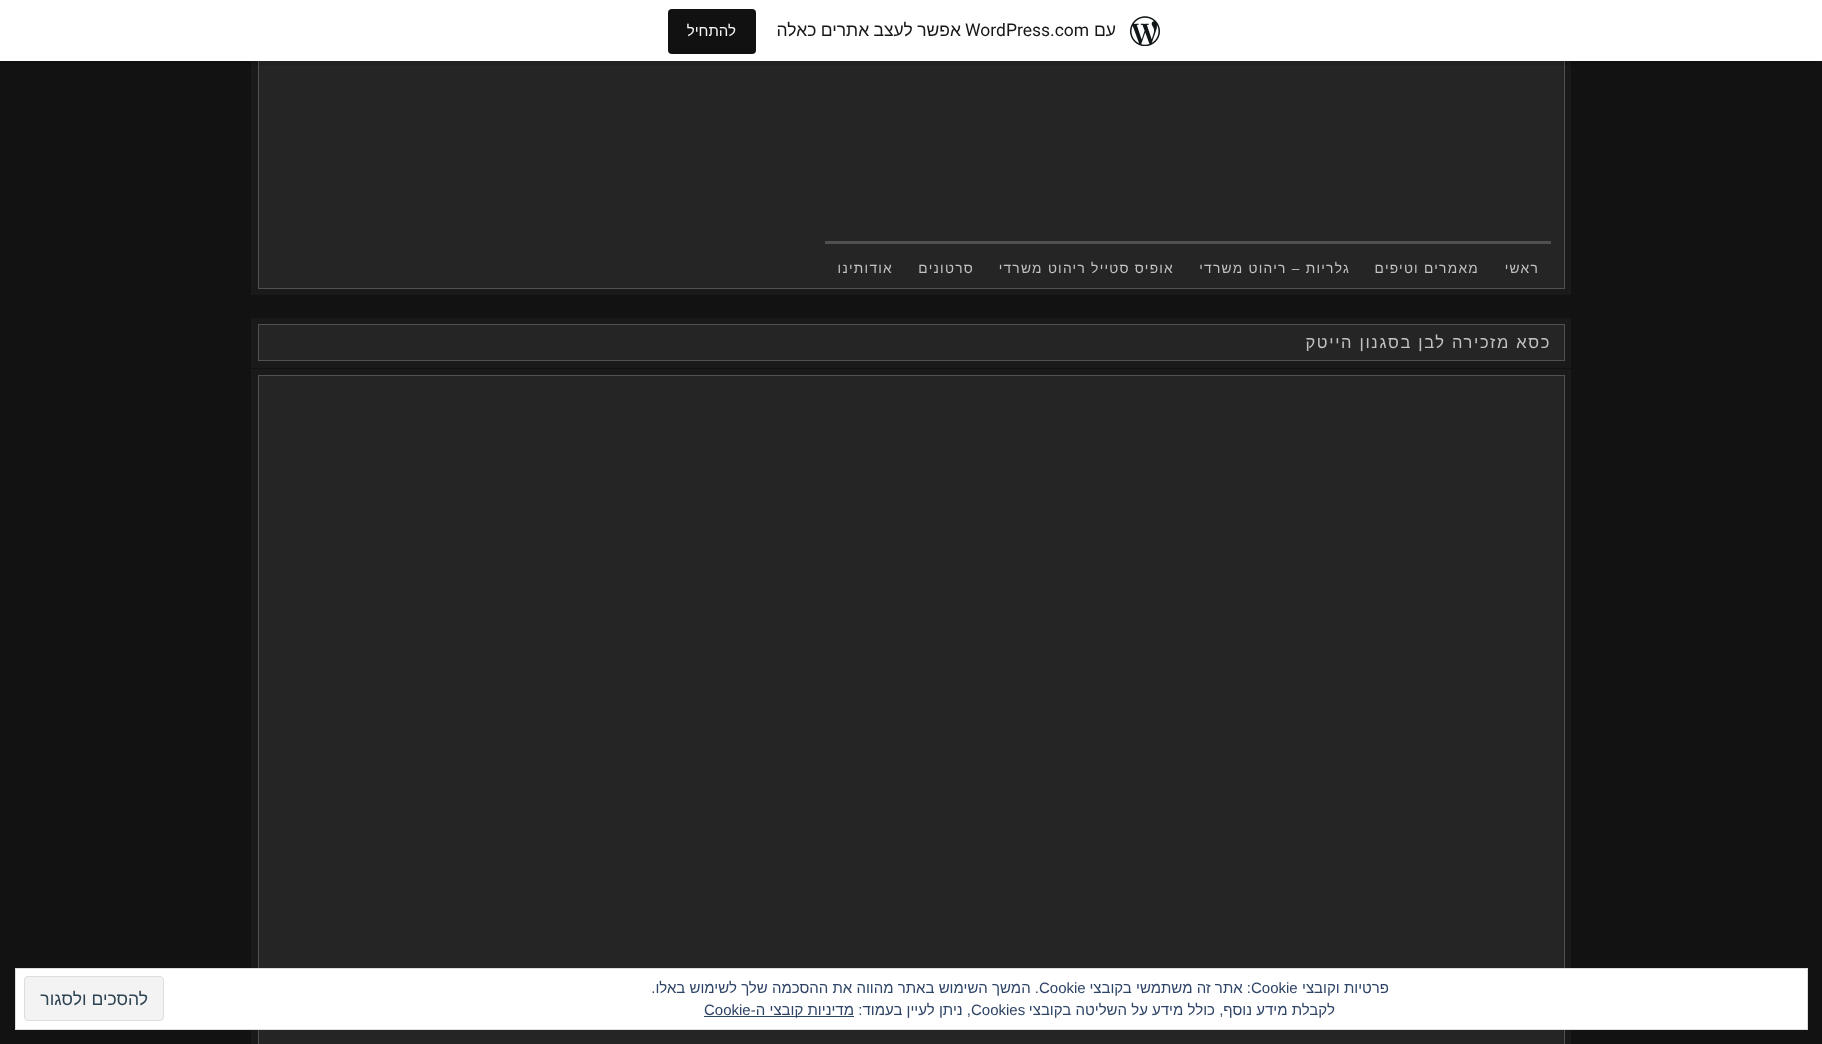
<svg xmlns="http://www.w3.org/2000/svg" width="1822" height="1044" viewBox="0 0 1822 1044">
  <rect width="100%" height="100%" fill="#121212"/>
  <rect x="251" y="61" width="1320" height="234" fill="#1a1a1a"/>
  <rect x="259" y="61" width="1305" height="227" fill="#252525"/>
  <rect x="258.5" y="-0.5" width="1306" height="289" fill="none" stroke="#515151"/>
  <path d="M-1 4V65H1821V61H0V4Z" fill="#000000" fill-opacity="0.08"/>
  <rect x="0" y="0" width="1822" height="61" fill="#ffffff"/>
  <image x="1130" y="16" width="30" height="30" href="img1.png"/>
  <text x="1116" y="36" font-family="Liberation Sans" font-size="17.5" direction="rtl" fill="#171717">עם</text>
  <text x="965" y="36" font-family="Roboto" font-size="17.5" fill="#171717">WordPress.com</text>
  <text x="961" y="36" word-spacing="-0.5" font-family="Liberation Sans" font-size="17.5" direction="rtl" fill="#171717">אפשר לעצב אתרים כאלה</text>
  <rect x="668" y="9" width="88" height="45" rx="4" fill="#111111"/>
  <text x="736" y="36" font-family="Liberation Sans" font-size="15" direction="rtl" fill="#f6f7f7">להתחיל</text>
  <rect x="825" y="241" width="726" height="3" fill="#515151"/>
  <text x="1539" y="273" font-family="Liberation Sans" font-size="13.75" letter-spacing="1.25" direction="rtl" fill="#c2c2c2">ראשי</text>
  <text x="1479" y="273" font-family="Liberation Sans" font-size="13.75" letter-spacing="1.25" direction="rtl" fill="#c2c2c2">מאמרים וטיפים</text>
  <text x="1350" y="273" font-family="Liberation Sans" font-size="13.75" letter-spacing="1.25" direction="rtl" fill="#c2c2c2">גלריות – ריהוט משרדי</text>
  <text x="1174" y="273" font-family="Liberation Sans" font-size="13.75" letter-spacing="1.25" direction="rtl" fill="#c2c2c2">אופיס סטייל ריהוט משרדי</text>
  <text x="974" y="273" font-family="Liberation Sans" font-size="13.75" letter-spacing="1.25" direction="rtl" fill="#c2c2c2">סרטונים</text>
  <text x="893" y="273" font-family="Liberation Sans" font-size="13.75" letter-spacing="1.25" direction="rtl" fill="#c2c2c2">אודותינו</text>
  <rect x="251" y="318" width="1320" height="50" fill="#1a1a1a"/>
  <rect x="258.5" y="324.5" width="1306" height="36" fill="#252525" stroke="#515151"/>
  <text x="1551" y="348" font-family="Liberation Sans" font-size="16.5" letter-spacing="1.65" direction="rtl" fill="#c2c2c2">כסא מזכירה לבן בסגנון הייטק</text>
  <rect x="251" y="369" width="1320" height="675" fill="#1a1a1a"/>
  <rect x="258.5" y="375.5" width="1306" height="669" fill="#252525" stroke="#515151"/>
  <rect x="15.5" y="968.5" width="1792" height="61" fill="#ffffff" stroke="#dedede"/>
  <text x="1389" y="993" font-family="Liberation Sans" font-size="15" direction="rtl" fill="#2e4467">פרטיות וקובצי</text>
  <text x="1251" y="993" font-family="Liberation Sans" font-size="15" fill="#2e4467">Cookie</text>
  <text x="1251" y="993" font-family="Liberation Sans" font-size="15" direction="rtl" fill="#2e4467">: אתר זה משתמשי בקובצי</text>
  <text x="1039" y="993" font-family="Liberation Sans" font-size="15" fill="#2e4467">Cookie</text>
  <text x="1039" y="993" font-family="Liberation Sans" font-size="15" direction="rtl" fill="#2e4467">. המשך השימוש באתר מהווה את ההסכמה שלך לשימוש באלו.</text>
  <rect x="24.5" y="976.5" width="139" height="44" rx="3.5" fill="#f3f3f3" stroke="#dedede"/>
  <text x="148" y="1005" font-family="Liberation Sans" font-size="17.5" direction="rtl" fill="#2e4453">להסכים ולסגור</text>
  <text x="1335" y="1015" font-family="Liberation Sans" font-size="15" direction="rtl" fill="#2e4467">לקבלת מידע נוסף, כולל מידע על השליטה בקובצי</text>
  <text x="971" y="1015" font-family="Liberation Sans" font-size="15" fill="#2e4467">Cookies</text>
  <text x="971" y="1015" font-family="Liberation Sans" font-size="15" direction="rtl" fill="#2e4467">, ניתן לעיין בעמוד:</text>
  <rect x="704" y="1016" width="150" height="1" fill="#2e4467"/>
  <text x="854" y="1015" font-family="Liberation Sans" font-size="15" direction="rtl" fill="#2e4467">מדיניות קובצי ה-</text>
  <text x="704" y="1015" font-family="Liberation Sans" font-size="15" fill="#2e4467">Cookie</text>
</svg>
